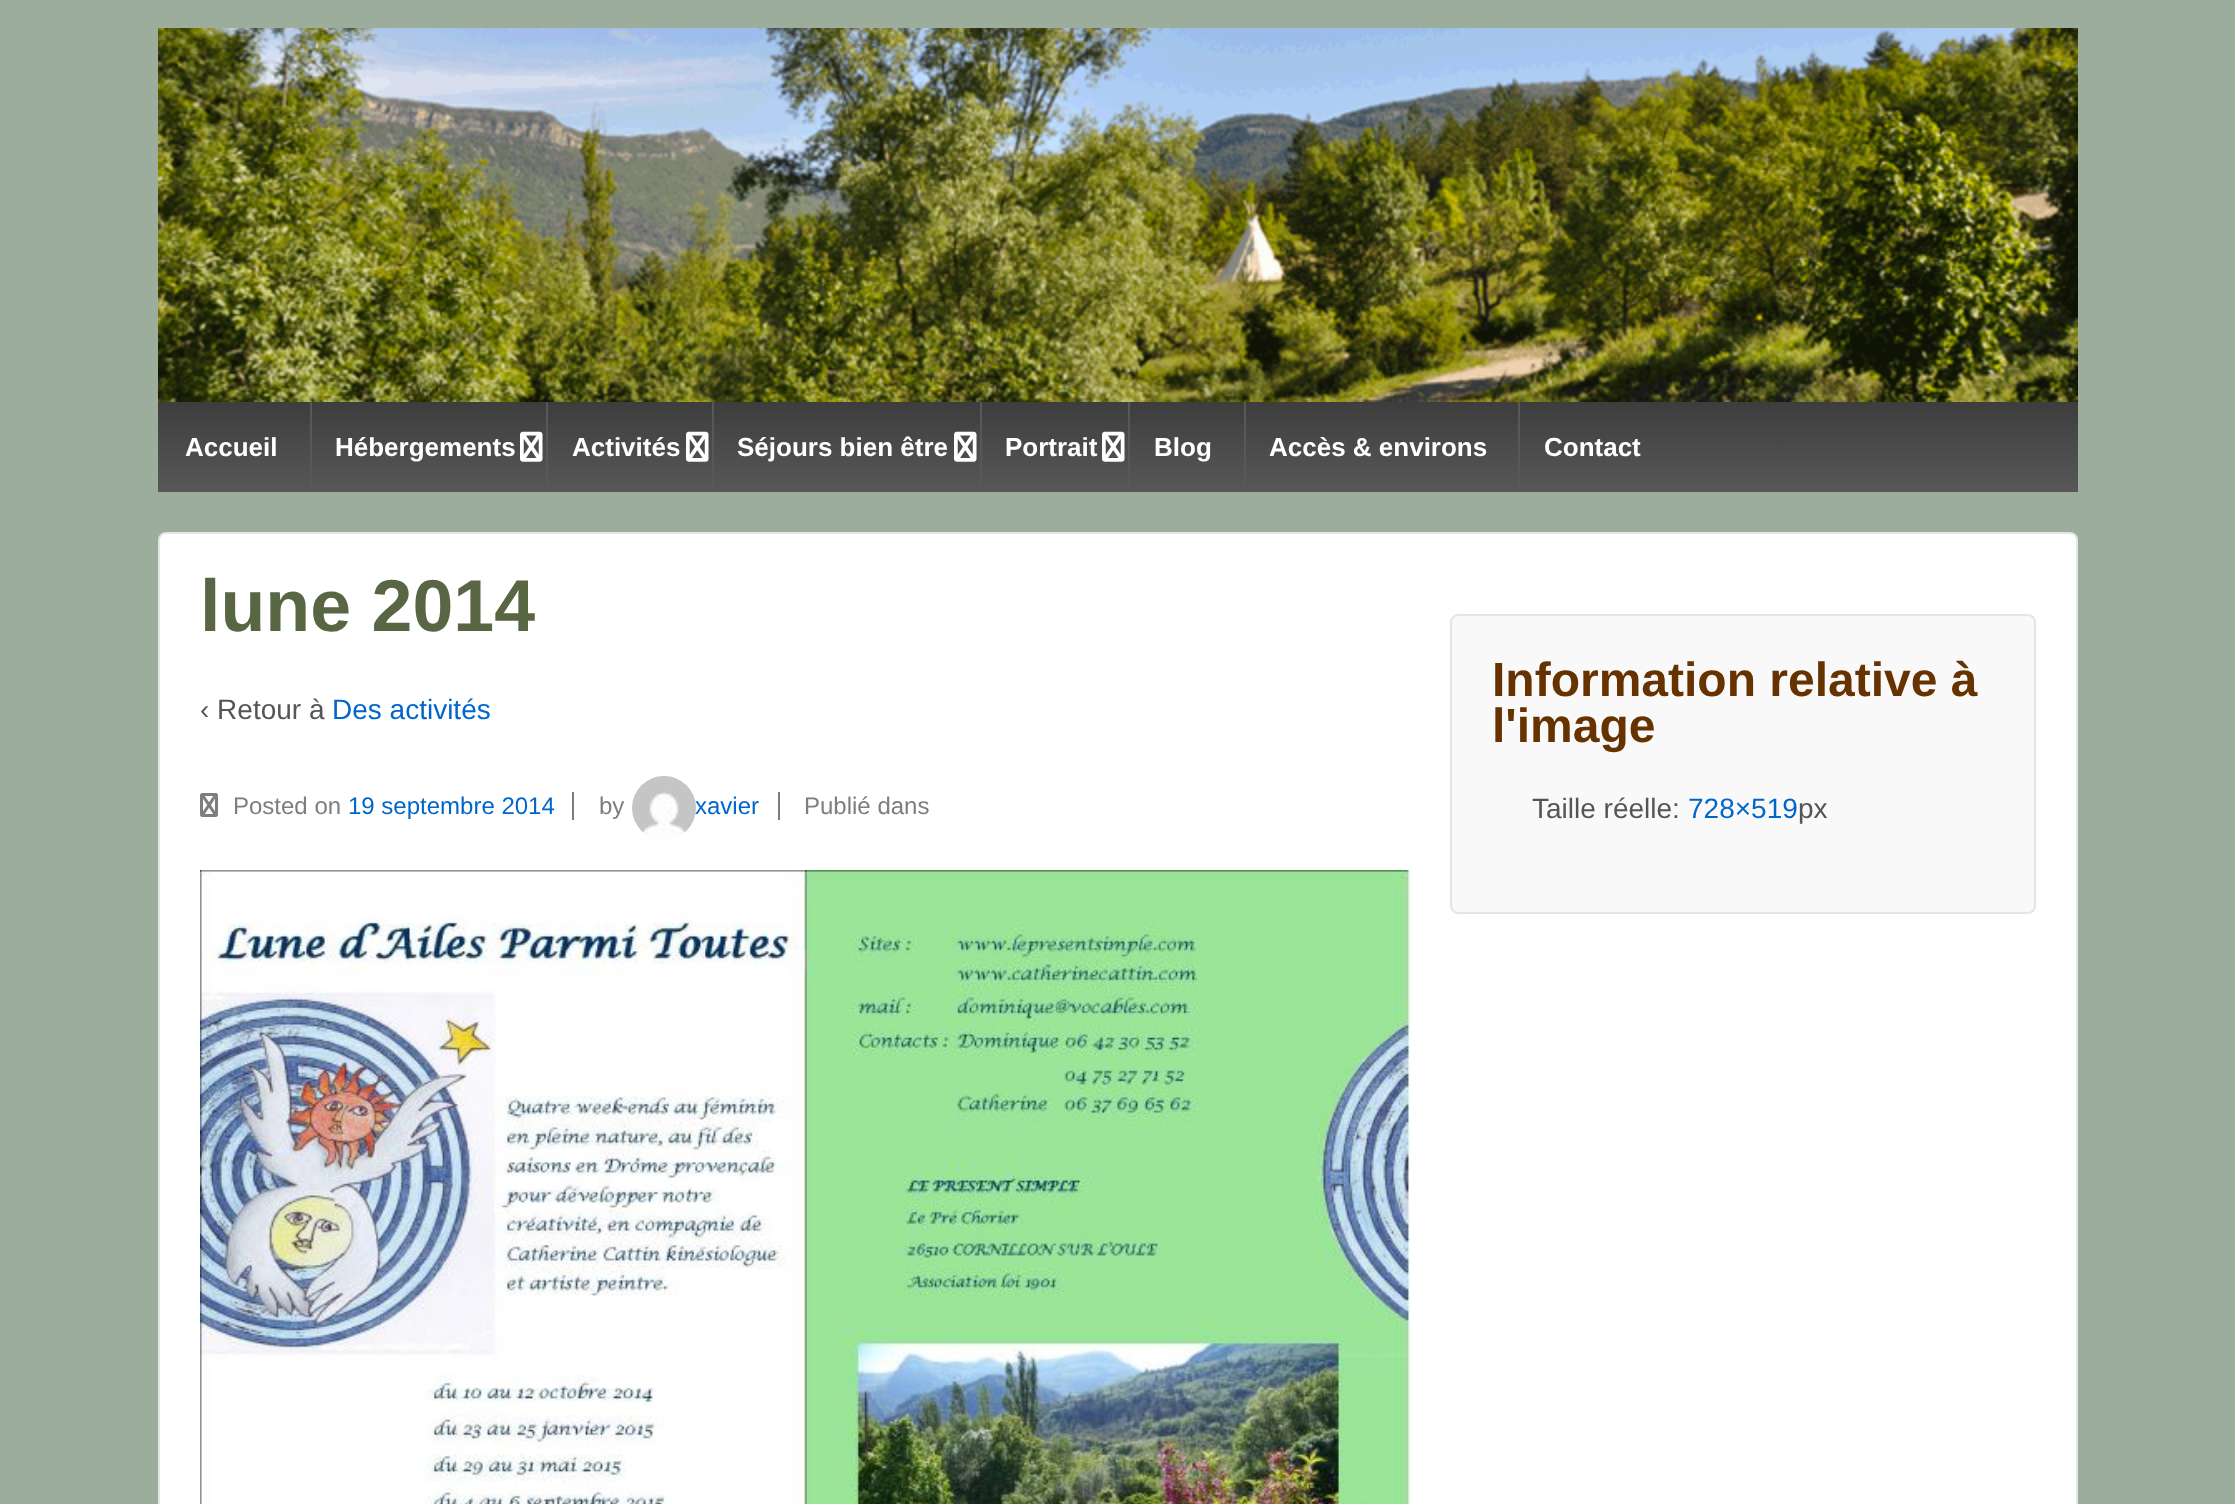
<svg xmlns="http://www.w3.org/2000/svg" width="2235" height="1504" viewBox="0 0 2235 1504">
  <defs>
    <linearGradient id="g1" gradientUnits="userSpaceOnUse" x1="1118" y1="492" x2="1118" y2="402"><stop offset="0" stop-color="#585858"/><stop offset="1" stop-color="#3d3d3d"/></linearGradient>
  </defs>
  <rect width="100%" height="100%" fill="#9dad9b"/>
  <image x="158" y="28" width="1920" height="374" href="img1.png"/>
  <rect x="158" y="402" width="1920" height="90" fill="url(#g1)"/>
  <text x="185" y="456" font-family="Liberation Sans" font-size="26" font-weight="bold" fill="#ffffff">Accueil</text>
  <rect x="310" y="402" width="2" height="90" fill="#585858"/>
  <text x="335" y="456" font-family="Liberation Sans" font-size="26" font-weight="bold" fill="#ffffff">Hébergements</text>
  <image x="520" y="431" width="23" height="31" href="img2.png"/>
  <rect x="546" y="402" width="2" height="90" fill="#585858"/>
  <text x="572" y="456" font-family="Liberation Sans" font-size="26" font-weight="bold" fill="#ffffff">Activités</text>
  <image x="686" y="431" width="23" height="31" href="img2.png"/>
  <rect x="712" y="402" width="2" height="90" fill="#585858"/>
  <text x="737" y="456" font-family="Liberation Sans" font-size="26" font-weight="bold" fill="#ffffff">Séjours bien être</text>
  <image x="954" y="431" width="23" height="31" href="img2.png"/>
  <rect x="980" y="402" width="2" height="90" fill="#585858"/>
  <text x="1005" y="456" font-family="Liberation Sans" font-size="26" font-weight="bold" fill="#ffffff">Portrait</text>
  <image x="1102" y="431" width="23" height="31" href="img2.png"/>
  <rect x="1128" y="402" width="2" height="90" fill="#585858"/>
  <text x="1154" y="456" font-family="Liberation Sans" font-size="26" font-weight="bold" fill="#ffffff">Blog</text>
  <rect x="1244" y="402" width="2" height="90" fill="#585858"/>
  <text x="1269" y="456" font-family="Liberation Sans" font-size="26" font-weight="bold" fill="#ffffff">Accès &amp; environs</text>
  <rect x="1518" y="402" width="2" height="90" fill="#585858"/>
  <text x="1544" y="456" font-family="Liberation Sans" font-size="26" font-weight="bold" fill="#ffffff">Contact</text>
  <rect x="159" y="533" width="1918" height="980" rx="7" fill="#ffffff" stroke="#e5e5e5" stroke-width="2"/>
  <text x="200" y="631" font-family="Liberation Sans" font-size="73.5" font-weight="bold" fill="#596643">lune 2014</text>
  <text x="200" y="719" font-family="Liberation Sans" font-size="28" fill="#555555">‹ Retour à</text>
  <text x="332" y="719" font-family="Liberation Sans" font-size="28" fill="#0066cc">Des activités</text>
  <image x="200" y="793" width="18" height="24" href="img3.png"/>
  <text x="233" y="814" font-family="Liberation Sans" font-size="24" fill="#7e7e7e">Posted on</text>
  <text x="348" y="814" font-family="Liberation Sans" font-size="24" fill="#0066cc">19 septembre 2014</text>
  <rect x="572" y="792" width="2" height="28" fill="#7e7e7e"/>
  <text x="599" y="814" font-family="Liberation Sans" font-size="24" fill="#7e7e7e">by</text>
  <image x="632" y="776" width="64" height="64" href="img4.png"/>
  <text x="695" y="814" font-family="Liberation Sans" font-size="24" fill="#0066cc">xavier</text>
  <rect x="778" y="792" width="2" height="28" fill="#7e7e7e"/>
  <text x="804" y="814" font-family="Liberation Sans" font-size="24" fill="#7e7e7e">Publié dans</text>
  <image x="200" y="870" width="1210" height="634" href="img5.png"/>
  <rect x="1451" y="615" width="584" height="298" rx="7" fill="#f9f9f9" stroke="#e5e5e5" stroke-width="2"/>
  <text x="1492" y="696" font-family="Liberation Sans" font-size="48" font-weight="bold" fill="#663300">Information relative à</text>
  <text x="1492" y="742" font-family="Liberation Sans" font-size="48" font-weight="bold" fill="#663300">l'image</text>
  <text x="1532" y="818" font-family="Liberation Sans" font-size="28" fill="#555555">Taille réelle:</text>
  <text x="1688" y="818" font-family="Liberation Sans" font-size="28" fill="#0066cc">728×519</text>
  <text x="1798" y="818" font-family="Liberation Sans" font-size="28" fill="#555555">px</text>
</svg>
